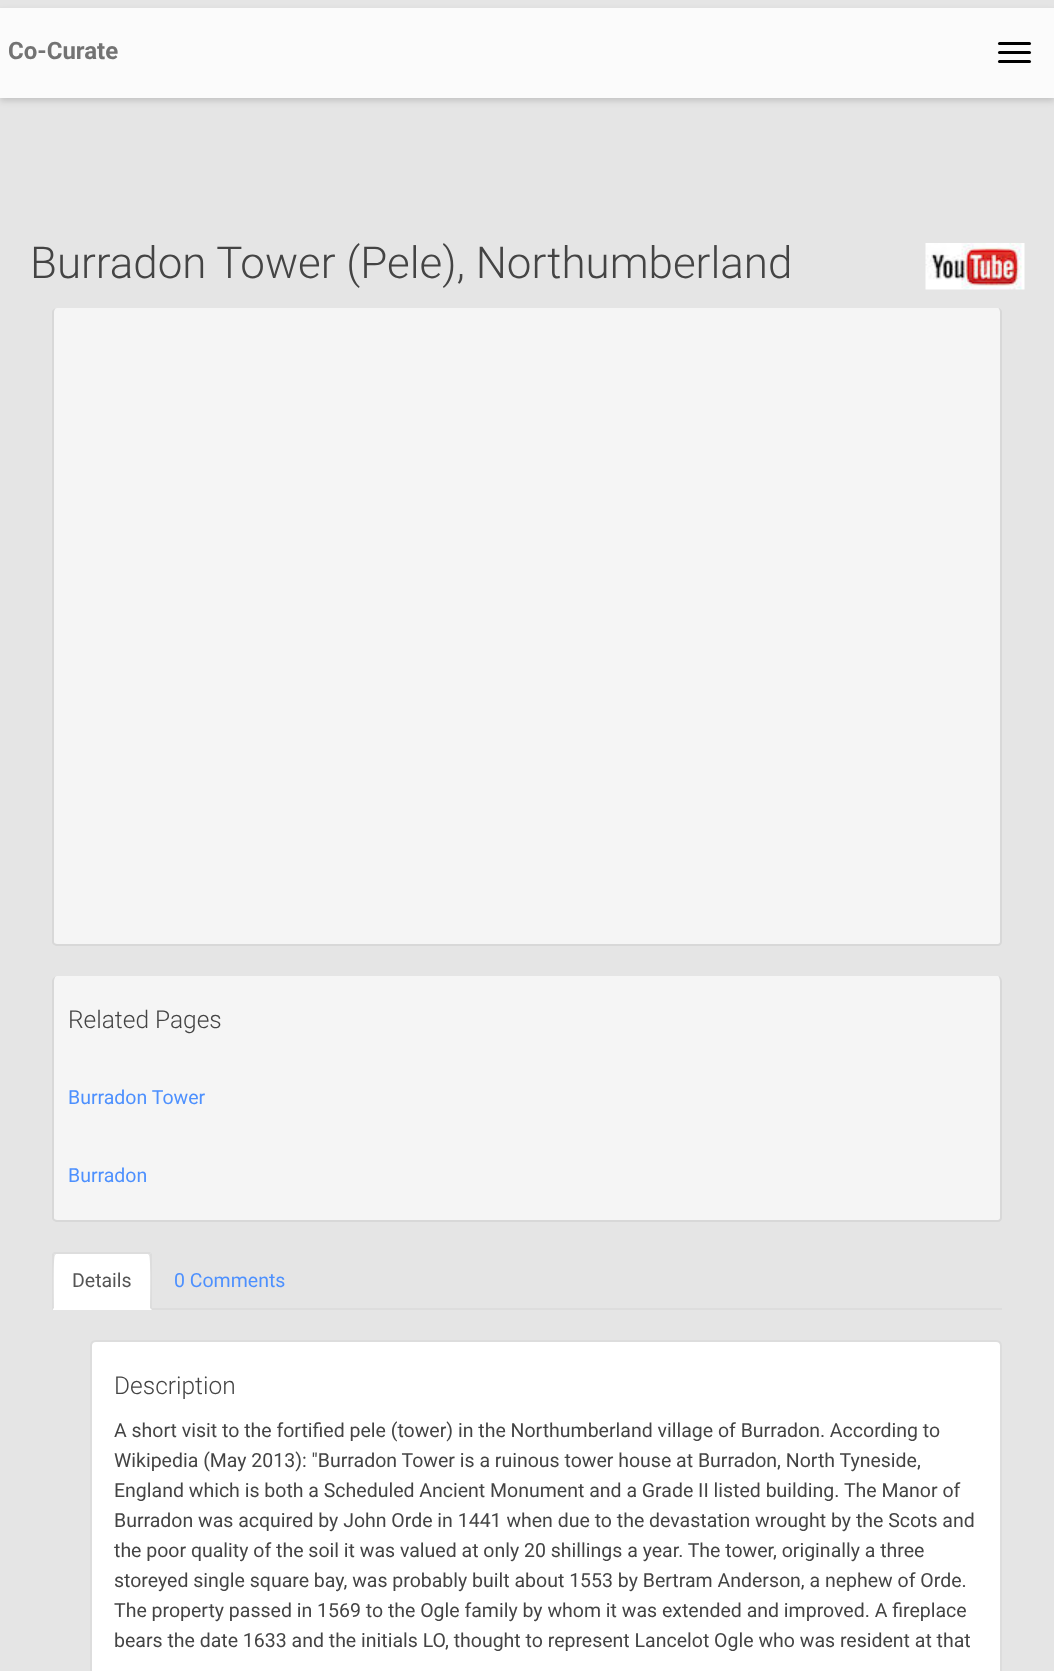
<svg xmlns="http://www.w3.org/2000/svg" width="1054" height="1671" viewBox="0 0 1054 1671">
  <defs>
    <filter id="blur1" x="-50%" y="-200%" width="200%" height="500%"><feGaussianBlur stdDeviation="3"/></filter>
  </defs>
  <rect width="100%" height="100%" fill="#e5e5e5"/>
  <rect x="0" y="11" width="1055" height="90" fill="#000000" fill-opacity="0.15" filter="url(#blur1)"/>
  <rect x="0" y="8" width="1054" height="90" fill="#fbfbfb"/>
  <text x="8" y="59" font-family="Roboto" font-size="24" font-weight="bold" fill="#737373">Co-Curate</text>
  <rect x="998" y="42" width="33" height="3" rx="1.5" fill="#000000"/>
  <rect x="998" y="51" width="33" height="3" rx="1.5" fill="#000000"/>
  <rect x="998" y="60" width="33" height="3" rx="1.5" fill="#000000"/>
  <text x="30" y="278" font-family="Roboto" font-size="43.9" font-weight="300" fill="#444444">Burradon Tower (Pele), Northumberland</text>
  <image x="925" y="243" width="100" height="47" href="img1.png"/>
  <path d="M57 308H998C999 308 1000 310 1000 312V942C1000 943 999 944 998 944H57C55 944 54 943 54 942V312C54 310 55 308 57 308Z" fill="#f5f5f5"/>
  <path d="M57 308H998C1000 308 1002 310 1002 312V942C1002 944 1000 946 998 946H57C55 946 52 944 52 942V312C52 310 55 308 57 308ZM57 308H998C999 308 1000 310 1000 312V942C1000 943 999 944 998 944H57C55 944 54 943 54 942V312C54 310 55 308 57 308Z" fill="#d8d8d8" fill-rule="evenodd"/>
  <path d="M57 976H998C999 976 1000 979 1000 981V1218C1000 1219 999 1220 998 1220H57C55 1220 54 1219 54 1218V981C54 979 55 976 57 976Z" fill="#f5f5f5"/>
  <path d="M57 976H998C1000 976 1002 979 1002 981V1218C1002 1220 1000 1222 998 1222H57C55 1222 52 1220 52 1218V981C52 979 55 976 57 976ZM57 976H998C999 976 1000 979 1000 981V1218C1000 1219 999 1220 998 1220H57C55 1220 54 1219 54 1218V981C54 979 55 976 57 976Z" fill="#d8d8d8" fill-rule="evenodd"/>
  <text x="68" y="1028" font-family="Roboto" font-size="24.5" font-weight="300" fill="#444444">Related Pages</text>
  <text x="68" y="1104" font-family="Roboto" font-size="19.5" fill="#4d90fe">Burradon Tower</text>
  <text x="68" y="1182" font-family="Roboto" font-size="19.5" fill="#4d90fe">Burradon</text>
  <rect x="152" y="1308" width="850" height="2" fill="#dddddd"/>
  <path d="M56 1253H149C150.5 1253 152 1254.5 152 1256V1310H53V1256C53 1254.5 54.5 1253 56 1253Z" fill="#ffffff"/>
  <path d="M56 1254L55 1255L53 1253L54 1252H150L151 1253L149 1255L148 1254Z" fill="#dddddd"/>
  <path d="M151 1253L152 1254V1310L150 1308C150 1302 151 1256 149 1255Z" fill="#dddddd"/>
  <path d="M52 1310V1254L53 1253L55 1255C53 1256 54 1302 54 1308Z" fill="#dddddd"/>
  <text x="72" y="1287" font-family="Roboto" font-size="19.5" fill="#555555">Details</text>
  <text x="174" y="1287" font-family="Roboto" font-size="19.5" fill="#4d90fe">0 Comments</text>
  <path d="M96 1341H996C999 1341 1001 1343 1001 1346V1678H91V1346C91 1343 93 1341 96 1341Z" fill="#ffffff" stroke="#dddddd" stroke-width="2"/>
  <text x="114" y="1394" font-family="Roboto" font-size="24.5" font-weight="300" fill="#444444">Description</text>
  <text x="114" y="1437" font-family="Roboto" font-size="19.5" fill="#444444">A short visit to the fortified pele (tower) in the Northumberland village of Burradon. According to</text>
  <text x="114" y="1467" font-family="Roboto" font-size="19.5" fill="#444444">Wikipedia (May 2013): "Burradon Tower is a ruinous tower house at Burradon, North Tyneside,</text>
  <text x="114" y="1497" font-family="Roboto" font-size="19.5" fill="#444444">England which is both a Scheduled Ancient Monument and a Grade II listed building. The Manor of</text>
  <text x="114" y="1527" font-family="Roboto" font-size="19.5" fill="#444444">Burradon was acquired by John Orde in 1441 when due to the devastation wrought by the Scots and</text>
  <text x="114" y="1557" font-family="Roboto" font-size="19.5" fill="#444444">the poor quality of the soil it was valued at only 20 shillings a year. The tower, originally a three</text>
  <text x="114" y="1587" font-family="Roboto" font-size="19.5" fill="#444444">storeyed single square bay, was probably built about 1553 by Bertram Anderson, a nephew of Orde.</text>
  <text x="114" y="1617" font-family="Roboto" font-size="19.5" fill="#444444">The property passed in 1569 to the Ogle family by whom it was extended and improved. A fireplace</text>
  <text x="114" y="1647" font-family="Roboto" font-size="19.5" fill="#444444">bears the date 1633 and the initials LO, thought to represent Lancelot Ogle who was resident at that</text>
</svg>
